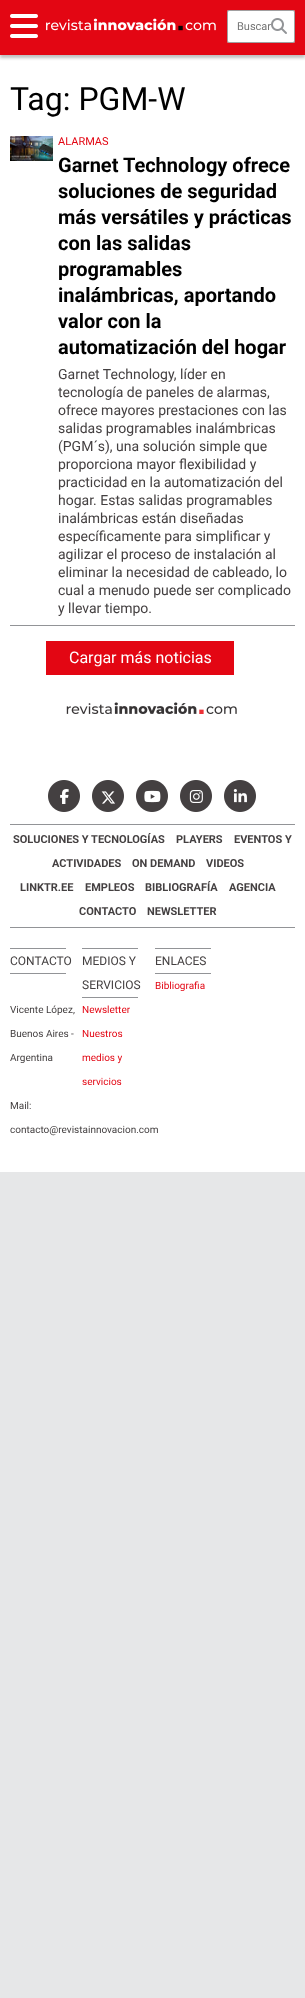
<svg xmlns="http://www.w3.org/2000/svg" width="305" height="1998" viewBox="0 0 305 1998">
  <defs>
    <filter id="blur1" x="-50%" y="-200%" width="200%" height="500%"><feGaussianBlur stdDeviation="1.5"/></filter>
  </defs>
  <rect width="100%" height="100%" fill="#e6e7e8"/>
  <rect x="0" y="55" width="305" height="1117" fill="#ffffff"/>
  <rect x="0" y="3" width="305" height="55" fill="#323232" fill-opacity="0.3" filter="url(#blur1)"/>
  <rect x="0" y="0" width="305" height="55" fill="#e30613"/>
  <image x="10" y="14" width="28" height="24" href="img1.png"/>
  <image x="46" y="18" width="170" height="13" href="img2.png"/>
  <rect x="227" y="10" width="68" height="33" rx="2" fill="#ffffff"/>
  <rect x="227.5" y="10.5" width="67" height="32" rx="1.5" fill="none" stroke="#444041" stroke-opacity="0.5"/>
  <text x="237" y="30" font-family="Roboto" font-size="11" fill="#757575">Buscar</text>
  <image x="271" y="18" width="16" height="16" href="img3.png"/>
  <text x="10" y="110" font-family="Roboto" font-size="32" fill="#000000">Tag: PGM-W</text>
  <rect x="10" y="625" width="285" height="1" fill="#929497"/>
  <image x="10" y="136" width="43" height="25" href="img4.png"/>
  <text x="58" y="145" font-family="Roboto" font-size="11" fill="#e30613">ALARMAS</text>
  <text x="58" y="172" font-family="Roboto" font-size="20" font-weight="bold" fill="#000000">Garnet Technology ofrece</text>
  <text x="58" y="198" font-family="Roboto" font-size="20" font-weight="bold" fill="#000000">soluciones de seguridad</text>
  <text x="58" y="224" font-family="Roboto" font-size="20" font-weight="bold" fill="#000000">más versátiles y prácticas</text>
  <text x="58" y="250" font-family="Roboto" font-size="20" font-weight="bold" fill="#000000">con las salidas</text>
  <text x="58" y="276" font-family="Roboto" font-size="20" font-weight="bold" fill="#000000">programables</text>
  <text x="58" y="302" font-family="Roboto" font-size="20" font-weight="bold" fill="#000000">inalámbricas, aportando</text>
  <text x="58" y="328" font-family="Roboto" font-size="20" font-weight="bold" fill="#000000">valor con la</text>
  <text x="58" y="354" font-family="Roboto" font-size="20" font-weight="bold" fill="#000000">automatización del hogar</text>
  <text x="58" y="379" font-family="Roboto" font-size="14" fill="#444041">Garnet Technology, líder en</text>
  <text x="58" y="397" font-family="Roboto" font-size="14" fill="#444041">tecnología de paneles de alarmas,</text>
  <text x="58" y="415" font-family="Roboto" font-size="14" fill="#444041">ofrece mayores prestaciones con las</text>
  <text x="58" y="433" font-family="Roboto" font-size="14" fill="#444041">salidas programables inalámbricas</text>
  <text x="58" y="451" font-family="Roboto" font-size="14" fill="#444041">(PGM´s), una solución simple que</text>
  <text x="58" y="469" font-family="Roboto" font-size="14" fill="#444041">proporciona mayor flexibilidad y</text>
  <text x="58" y="487" font-family="Roboto" font-size="14" fill="#444041">practicidad en la automatización del</text>
  <text x="58" y="505" font-family="Roboto" font-size="14" fill="#444041">hogar. Estas salidas programables</text>
  <text x="58" y="523" font-family="Roboto" font-size="14" fill="#444041">inalámbricas están diseñadas</text>
  <text x="58" y="541" font-family="Roboto" font-size="14" fill="#444041">específicamente para simplificar y</text>
  <text x="58" y="559" font-family="Roboto" font-size="14" fill="#444041">agilizar el proceso de instalación al</text>
  <text x="58" y="577" font-family="Roboto" font-size="14" fill="#444041">eliminar la necesidad de cableado, lo</text>
  <text x="58" y="595" font-family="Roboto" font-size="14" fill="#444041">cual a menudo puede ser complicado</text>
  <text x="58" y="613" font-family="Roboto" font-size="14" fill="#444041">y llevar tiempo.</text>
  <rect x="46" y="641" width="188" height="34" fill="#e30613"/>
  <text x="69" y="663" font-family="Roboto" font-size="16" fill="#ffffff">Cargar más noticias</text>
  <image x="66" y="702" width="171" height="12" href="img5.png"/>
  <image x="48" y="780" width="32" height="32" href="img6.png"/>
  <image x="60" y="789" width="9" height="15" href="img7.png"/>
  <image x="92" y="780" width="32" height="32" href="img6.png"/>
  <image x="101" y="791" width="14" height="13" href="img8.png"/>
  <image x="136" y="780" width="32" height="32" href="img6.png"/>
  <image x="144" y="790" width="17" height="13" href="img9.png"/>
  <image x="180" y="780" width="32" height="32" href="img6.png"/>
  <image x="189" y="790" width="14" height="13" href="img10.png"/>
  <image x="224" y="780" width="32" height="32" href="img6.png"/>
  <image x="233" y="789" width="14" height="14" href="img11.png"/>
  <rect x="10" y="824" width="285" height="1" fill="#929497"/>
  <text x="13" y="843" font-family="Roboto" font-size="11" font-weight="bold" fill="#444041">SOLUCIONES Y TECNOLOGÍAS</text>
  <text x="176" y="843" font-family="Roboto" font-size="11" font-weight="bold" fill="#444041">PLAYERS</text>
  <text x="234" y="843" font-family="Roboto" font-size="11" font-weight="bold" fill="#444041">EVENTOS Y</text>
  <text x="52" y="867" font-family="Roboto" font-size="11" font-weight="bold" fill="#444041">ACTIVIDADES</text>
  <text x="132" y="867" font-family="Roboto" font-size="11" font-weight="bold" fill="#444041">ON DEMAND</text>
  <text x="206" y="867" font-family="Roboto" font-size="11" font-weight="bold" fill="#444041">VIDEOS</text>
  <text x="20" y="891" font-family="Roboto" font-size="11" font-weight="bold" fill="#444041">LINKTR.EE</text>
  <text x="85" y="891" font-family="Roboto" font-size="11" font-weight="bold" fill="#444041">EMPLEOS</text>
  <text x="145" y="891" font-family="Roboto" font-size="11" font-weight="bold" fill="#444041">BIBLIOGRAFÍA</text>
  <text x="229" y="891" font-family="Roboto" font-size="11" font-weight="bold" fill="#444041">AGENCIA</text>
  <text x="79" y="915" font-family="Roboto" font-size="11" font-weight="bold" fill="#444041">CONTACTO</text>
  <text x="147" y="915" font-family="Roboto" font-size="11" font-weight="bold" fill="#444041">NEWSLETTER</text>
  <rect x="10" y="927" width="285" height="1" fill="#929497"/>
  <rect x="10" y="948" width="56" height="1" fill="#929497"/>
  <rect x="10" y="973" width="56" height="1" fill="#929497"/>
  <text x="10" y="965" font-family="Roboto" font-size="12" fill="#444041">CONTACTO</text>
  <text x="10" y="1013" font-family="Roboto" font-size="10" fill="#444041">Vicente López,</text>
  <text x="10" y="1037" font-family="Roboto" font-size="10" fill="#444041">Buenos Aires -</text>
  <text x="10" y="1061" font-family="Roboto" font-size="10" fill="#444041">Argentina</text>
  <text x="10" y="1109" font-family="Roboto" font-size="10" fill="#444041">Mail:</text>
  <text x="10" y="1133" font-family="Roboto" font-size="10" fill="#444041">contacto@revistainnovacion.com</text>
  <rect x="82" y="948" width="56" height="1" fill="#929497"/>
  <rect x="82" y="997" width="56" height="1" fill="#929497"/>
  <text x="82" y="965" font-family="Roboto" font-size="12" fill="#444041">MEDIOS Y</text>
  <text x="82" y="989" font-family="Roboto" font-size="12" fill="#444041">SERVICIOS</text>
  <text x="82" y="1013" font-family="Roboto" font-size="10" fill="#e30613">Newsletter</text>
  <text x="82" y="1037" font-family="Roboto" font-size="10" fill="#e30613">Nuestros</text>
  <text x="82" y="1061" font-family="Roboto" font-size="10" fill="#e30613">medios y</text>
  <text x="82" y="1085" font-family="Roboto" font-size="10" fill="#e30613">servicios</text>
  <rect x="155" y="948" width="56" height="1" fill="#929497"/>
  <rect x="155" y="973" width="56" height="1" fill="#929497"/>
  <text x="155" y="965" font-family="Roboto" font-size="12" fill="#444041">ENLACES</text>
  <text x="155" y="989" font-family="Roboto" font-size="10" fill="#e30613">Bibliografia</text>
</svg>
